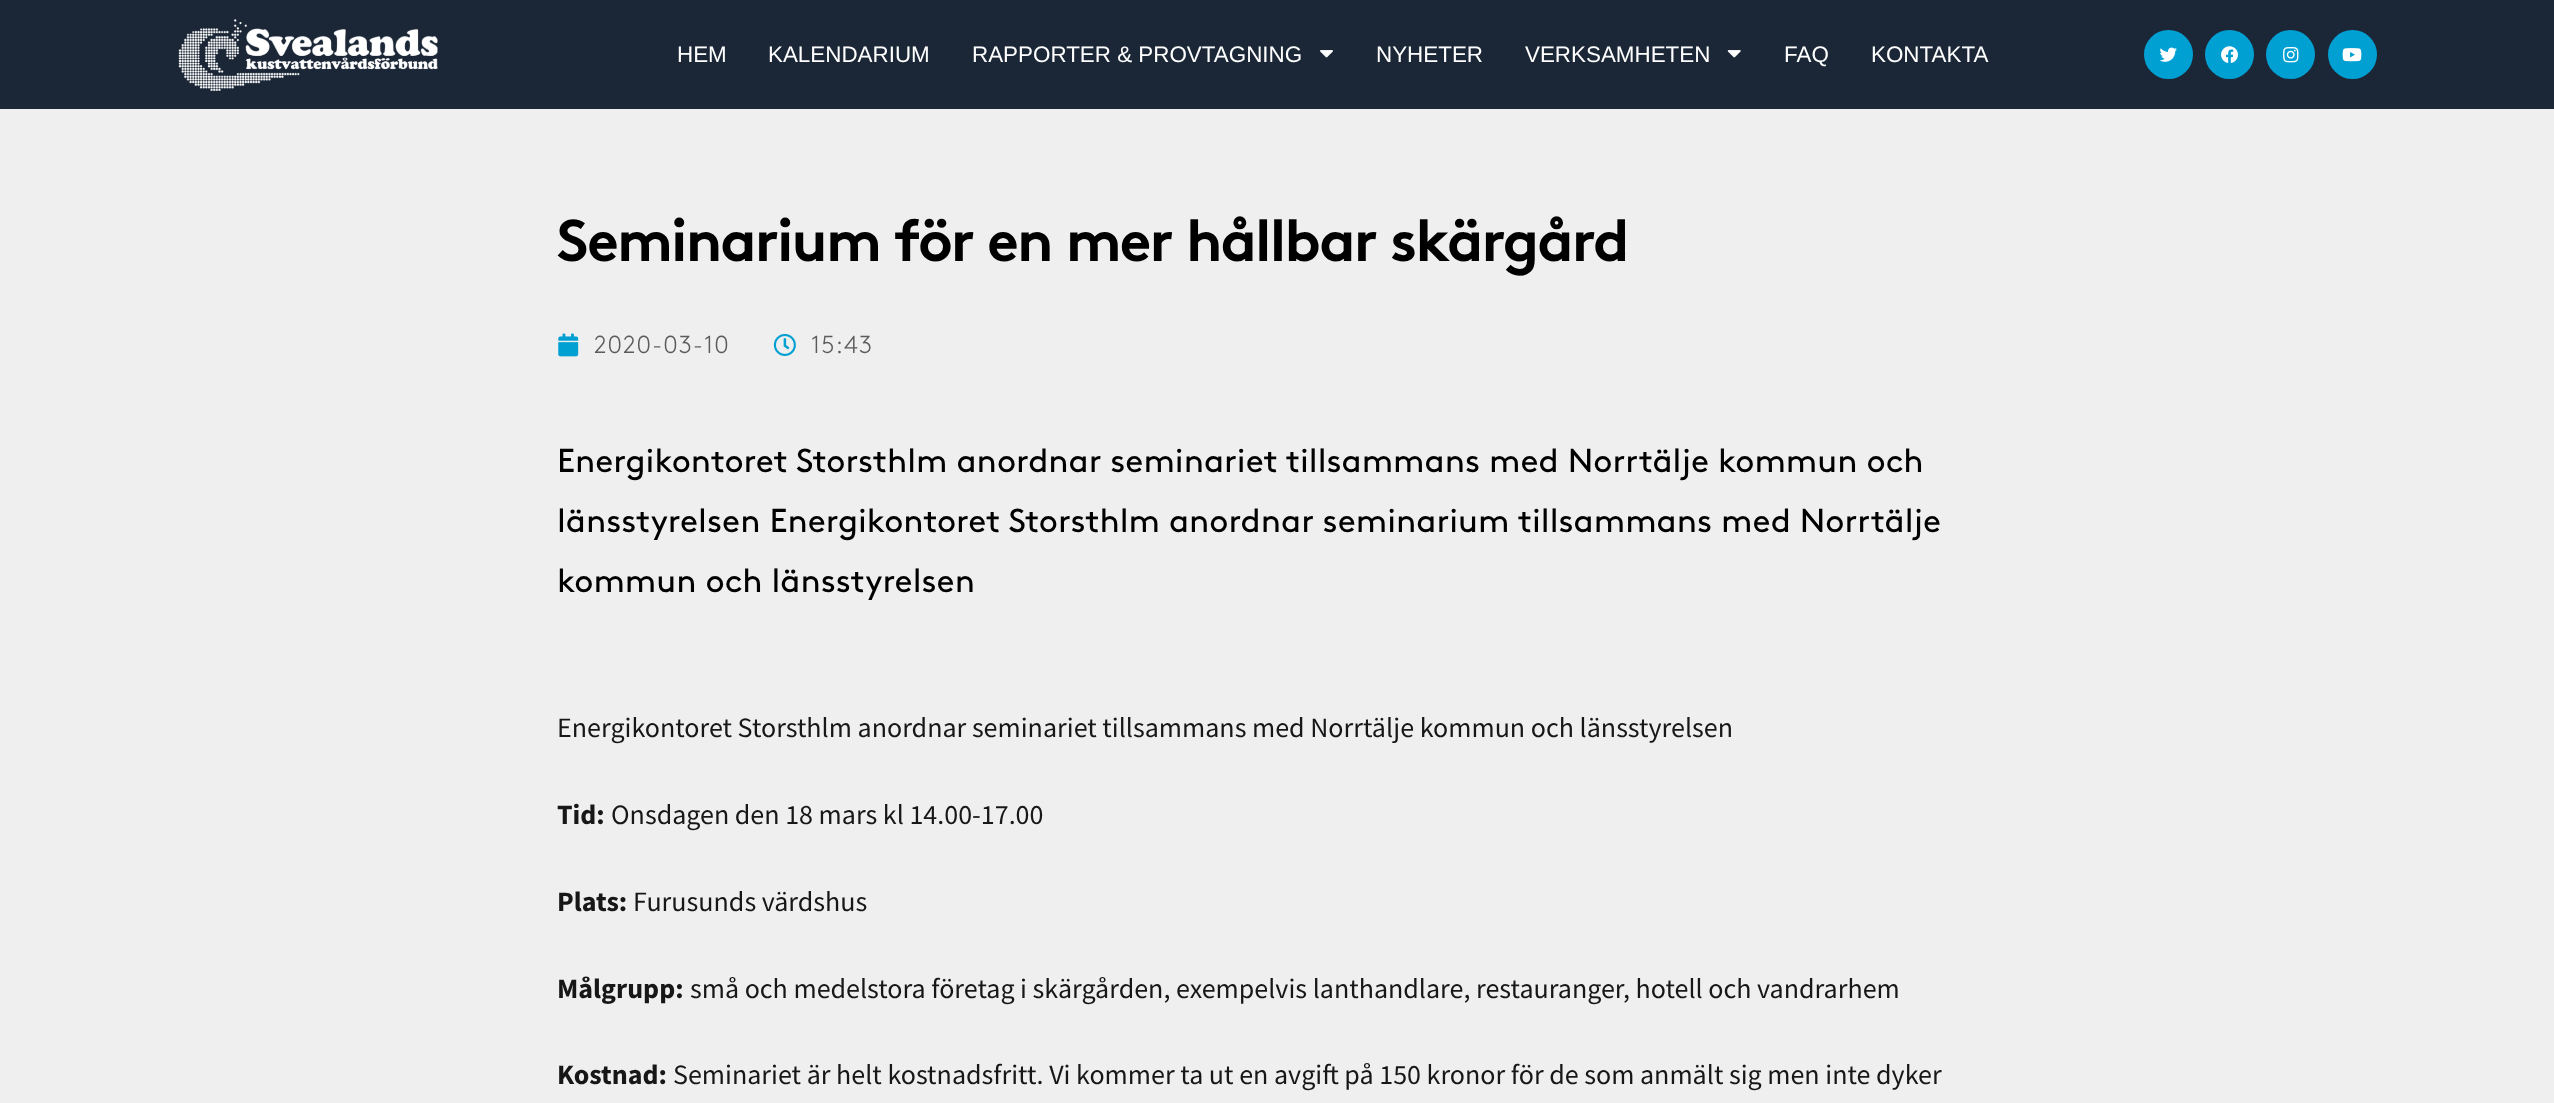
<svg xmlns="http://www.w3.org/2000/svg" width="2554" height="1103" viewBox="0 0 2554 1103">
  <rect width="100%" height="100%" fill="#efefef"/>
  <rect x="0" y="0" width="2554" height="109" fill="#1b2737"/>
  <image x="178" y="19" width="260" height="72" href="img1.png"/>
  <text x="677" y="62" font-family="Liberation Sans" font-size="22.4" fill="#ffffff">HEM</text>
  <text x="768" y="62" font-family="Liberation Sans" font-size="22.4" fill="#ffffff">KALENDARIUM</text>
  <text x="972" y="62" font-family="Liberation Sans" font-size="22.4" fill="#ffffff">RAPPORTER &amp; PROVTAGNING</text>
  <image x="1320" y="50" width="13" height="8" href="img2.png"/>
  <text x="1376" y="62" font-family="Liberation Sans" font-size="22.4" fill="#ffffff">NYHETER</text>
  <text x="1525" y="62" font-family="Liberation Sans" font-size="22.4" fill="#ffffff">VERKSAMHETEN</text>
  <image x="1727" y="50" width="14" height="8" href="img3.png"/>
  <text x="1784" y="62" font-family="Liberation Sans" font-size="22.4" fill="#ffffff">FAQ</text>
  <text x="1871" y="62" font-family="Liberation Sans" font-size="22.4" fill="#ffffff">KONTAKTA</text>
  <circle cx="2168.5" cy="54.5" r="24.5" fill="#00a0d3"/>
  <image x="2159" y="47" width="18" height="15" href="img4.png"/>
  <circle cx="2229.5" cy="54.5" r="24.5" fill="#00a0d3"/>
  <image x="2221" y="46" width="17" height="17" href="img5.png"/>
  <circle cx="2290.5" cy="54.5" r="24.5" fill="#00a0d3"/>
  <image x="2283" y="47" width="16" height="16" href="img6.png"/>
  <circle cx="2352.5" cy="54.5" r="24.5" fill="#00a0d3"/>
  <image x="2342" y="48" width="20" height="14" href="img7.png"/>
  <text x="557" y="261" font-family="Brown" font-size="58.75" font-weight="bold" letter-spacing="-1.75" fill="#000000">Seminarium för en mer hållbar skärgård</text>
  <image x="558" y="333" width="21" height="24" href="img8.png"/>
  <text x="594" y="353" font-family="Brown" font-size="24.5" font-weight="300" letter-spacing="1" fill="#5b5b5b">2020-03-10</text>
  <image x="773" y="334" width="23" height="22" href="img9.png"/>
  <text x="811" y="353" font-family="Brown" font-size="24.5" font-weight="300" letter-spacing="1" fill="#5b5b5b">15:43</text>
  <text x="557" y="472" font-family="Brown" font-size="33.25" fill="#000000">Energikontoret Storsthlm anordnar seminariet tillsammans med Norrtälje kommun och</text>
  <text x="557" y="532" font-family="Brown" font-size="33.25" fill="#000000">länsstyrelsen Energikontoret Storsthlm anordnar seminarium tillsammans med Norrtälje</text>
  <text x="557" y="592" font-family="Brown" font-size="33.25" fill="#000000">kommun och länsstyrelsen</text>
  <text x="557" y="737" font-family="Source Sans Pro" font-size="28" fill="#171717">Energikontoret Storsthlm anordnar seminariet tillsammans med Norrtälje kommun och länsstyrelsen</text>
  <text x="557" y="824" font-family="Source Sans Pro" font-size="28" font-weight="bold" fill="#171717">Tid:</text>
  <text x="611" y="824" font-family="Source Sans Pro" font-size="28" fill="#171717">Onsdagen den 18 mars kl 14.00-17.00</text>
  <text x="557" y="911" font-family="Source Sans Pro" font-size="28" font-weight="bold" fill="#171717">Plats:</text>
  <text x="633" y="911" font-family="Source Sans Pro" font-size="28" fill="#171717">Furusunds värdshus</text>
  <text x="557" y="998" font-family="Source Sans Pro" font-size="28" font-weight="bold" fill="#171717">Målgrupp:</text>
  <text x="690" y="998" font-family="Source Sans Pro" font-size="28" fill="#171717">små och medelstora företag i skärgården, exempelvis lanthandlare, restauranger, hotell och vandrarhem</text>
  <text x="557" y="1084" font-family="Source Sans Pro" font-size="28" font-weight="bold" fill="#171717">Kostnad:</text>
  <text x="673" y="1084" font-family="Source Sans Pro" font-size="28" fill="#171717">Seminariet är helt kostnadsfritt. Vi kommer ta ut en avgift på 150 kronor för de som anmält sig men inte dyker</text>
</svg>
